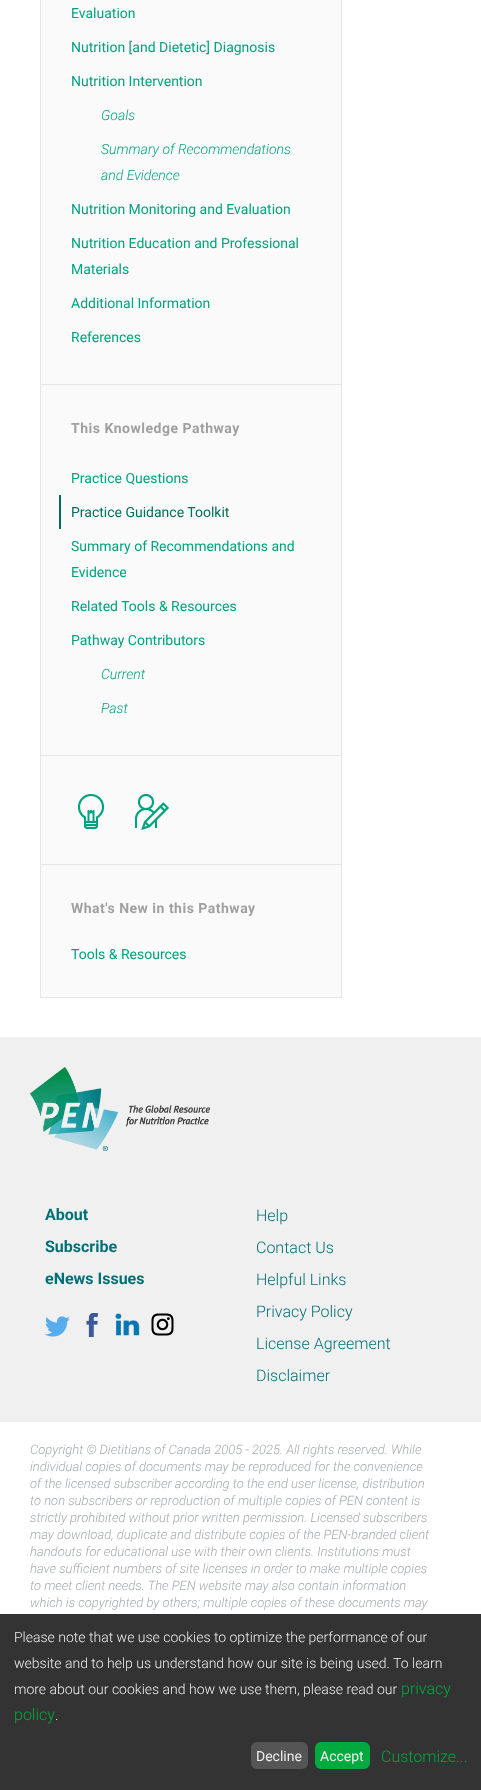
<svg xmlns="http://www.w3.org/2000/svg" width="481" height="1790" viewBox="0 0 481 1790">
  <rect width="100%" height="100%" fill="#ffffff"/>
  <rect x="40.5" y="-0.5" width="301" height="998" fill="#fafafa" stroke="#e5e6e7"/>
  <rect x="41" y="384" width="300" height="1" fill="#e5e6e7"/>
  <text x="71" y="18" font-family="Roboto" font-size="14" fill="#01a37e">Evaluation</text>
  <text x="71" y="52" font-family="Roboto" font-size="14" fill="#01a37e">Nutrition [and Dietetic] Diagnosis</text>
  <text x="71" y="86" font-family="Roboto" font-size="14" fill="#01a37e">Nutrition Intervention</text>
  <text x="101" y="120" font-family="Roboto" font-size="14" font-weight="300" font-style="italic" fill="#01a37e">Goals</text>
  <text x="101" y="154" font-family="Roboto" font-size="14" font-weight="300" font-style="italic" fill="#01a37e">Summary of Recommendations</text>
  <text x="101" y="180" font-family="Roboto" font-size="14" font-weight="300" font-style="italic" fill="#01a37e">and Evidence</text>
  <text x="71" y="214" font-family="Roboto" font-size="14" fill="#01a37e">Nutrition Monitoring and Evaluation</text>
  <text x="71" y="248" font-family="Roboto" font-size="14" fill="#01a37e">Nutrition Education and Professional</text>
  <text x="71" y="274" font-family="Roboto" font-size="14" fill="#01a37e">Materials</text>
  <text x="71" y="308" font-family="Roboto" font-size="14" fill="#01a37e">Additional Information</text>
  <text x="71" y="342" font-family="Roboto" font-size="14" fill="#01a37e">References</text>
  <rect x="41" y="755" width="300" height="1" fill="#e5e6e7"/>
  <text x="71" y="433" font-family="Roboto" font-size="14" font-weight="bold" letter-spacing="0.5" fill="#a0a0a0">This Knowledge Pathway</text>
  <text x="71" y="483" font-family="Roboto" font-size="14" fill="#01a37e">Practice Questions</text>
  <rect x="59" y="495" width="2" height="34" fill="#00705b"/>
  <text x="71" y="517" font-family="Roboto" font-size="14" fill="#00705b">Practice Guidance Toolkit</text>
  <text x="71" y="551" font-family="Roboto" font-size="14" fill="#01a37e">Summary of Recommendations and</text>
  <text x="71" y="577" font-family="Roboto" font-size="14" fill="#01a37e">Evidence</text>
  <text x="71" y="611" font-family="Roboto" font-size="14" fill="#01a37e">Related Tools &amp; Resources</text>
  <text x="71" y="645" font-family="Roboto" font-size="14" fill="#01a37e">Pathway Contributors</text>
  <text x="101" y="679" font-family="Roboto" font-size="14" font-weight="300" font-style="italic" fill="#01a37e">Current</text>
  <text x="101" y="713" font-family="Roboto" font-size="14" font-weight="300" font-style="italic" fill="#01a37e">Past</text>
  <rect x="41" y="864" width="300" height="1" fill="#e5e6e7"/>
  <image x="78" y="794" width="26" height="35" href="img1.png"/>
  <image x="135" y="794" width="34" height="36" href="img2.png"/>
  <text x="71" y="913" font-family="Roboto" font-size="14" font-weight="bold" letter-spacing="0.5" fill="#a0a0a0">What's New in this Pathway</text>
  <text x="71" y="959" font-family="Roboto" font-size="14" fill="#01a37e">Tools &amp; Resources</text>
  <rect x="0" y="1037" width="481" height="385" fill="#f0f0f0"/>
  <image x="30" y="1067" width="180" height="84" href="img3.png"/>
  <text x="45" y="1220" font-family="Roboto" font-size="16" font-weight="bold" fill="#007076">About</text>
  <text x="45" y="1252" font-family="Roboto" font-size="16" font-weight="bold" fill="#007076">Subscribe</text>
  <text x="45" y="1284" font-family="Roboto" font-size="16" font-weight="bold" fill="#007076">eNews Issues</text>
  <image x="45" y="1316" width="25" height="21" href="img4.png"/>
  <image x="86" y="1313" width="13" height="24" href="img5.png"/>
  <image x="115" y="1313" width="25" height="23" href="img6.png"/>
  <image x="151" y="1313" width="23" height="23" href="img7.png"/>
  <text x="256" y="1221" font-family="Roboto" font-size="16" font-weight="300" fill="#007076">Help</text>
  <text x="256" y="1253" font-family="Roboto" font-size="16" font-weight="300" fill="#007076">Contact Us</text>
  <text x="256" y="1285" font-family="Roboto" font-size="16" font-weight="300" fill="#007076">Helpful Links</text>
  <text x="256" y="1317" font-family="Roboto" font-size="16" font-weight="300" fill="#007076">Privacy Policy</text>
  <text x="256" y="1349" font-family="Roboto" font-size="16" font-weight="300" fill="#007076">License Agreement</text>
  <text x="256" y="1381" font-family="Roboto" font-size="16" font-weight="300" fill="#007076">Disclaimer</text>
  <text x="30" y="1454" font-family="Roboto" font-size="13" font-weight="300" font-style="italic" fill="#a5aaaf">Copyright © Dietitians of Canada 2005 - 2025. All rights reserved. While</text>
  <text x="30" y="1471" font-family="Roboto" font-size="13" font-weight="300" font-style="italic" fill="#a5aaaf">individual copies of documents may be reproduced for the convenience</text>
  <text x="30" y="1488" font-family="Roboto" font-size="13" font-weight="300" font-style="italic" fill="#a5aaaf">of the licensed subscriber according to the end user license, distribution</text>
  <text x="30" y="1505" font-family="Roboto" font-size="13" font-weight="300" font-style="italic" fill="#a5aaaf">to non subscribers or reproduction of multiple copies of PEN content is</text>
  <text x="30" y="1522" font-family="Roboto" font-size="13" font-weight="300" font-style="italic" fill="#a5aaaf">strictly prohibited without prior written permission. Licensed subscribers</text>
  <text x="30" y="1539" font-family="Roboto" font-size="13" font-weight="300" font-style="italic" fill="#a5aaaf">may download, duplicate and distribute copies of the PEN-branded client</text>
  <text x="30" y="1556" font-family="Roboto" font-size="13" font-weight="300" font-style="italic" fill="#a5aaaf">handouts for educational use with their own clients. Institutions must</text>
  <text x="30" y="1573" font-family="Roboto" font-size="13" font-weight="300" font-style="italic" fill="#a5aaaf">have sufficient numbers of site licenses in order to make multiple copies</text>
  <text x="30" y="1590" font-family="Roboto" font-size="13" font-weight="300" font-style="italic" fill="#a5aaaf">to meet client needs. The PEN website may also contain information</text>
  <text x="30" y="1607" font-family="Roboto" font-size="13" font-weight="300" font-style="italic" fill="#a5aaaf">which is copyrighted by others; multiple copies of these documents may</text>
  <rect x="0" y="1614" width="481" height="176" fill="#333333"/>
  <text x="14" y="1642" font-family="Roboto" font-size="14" font-weight="300" fill="#eeeeee">Please note that we use cookies to optimize the performance of our</text>
  <text x="14" y="1668" font-family="Roboto" font-size="14" font-weight="300" fill="#eeeeee">website and to help us understand how our site is being used. To learn</text>
  <text x="14" y="1694" font-family="Roboto" font-size="14" font-weight="300" fill="#eeeeee">more about our cookies and how we use them, please read our</text>
  <text x="401" y="1694" font-family="Roboto" font-size="16" font-weight="300" fill="#00aa3e">privacy</text>
  <text x="14" y="1720" font-family="Roboto" font-size="16" font-weight="300" fill="#00aa3e">policy</text>
  <text x="55" y="1720" font-family="Roboto" font-size="14" font-weight="300" fill="#eeeeee">.</text>
  <rect x="251" y="1742" width="57" height="27" rx="6" fill="#555555"/>
  <text x="256" y="1761" font-family="Roboto" font-size="14" fill="#eeeeee">Decline</text>
  <rect x="315" y="1742" width="55" height="27" rx="6" fill="#00aa3e"/>
  <text x="320" y="1761" font-family="Roboto" font-size="14" fill="#eeeeee">Accept</text>
  <text x="381" y="1762" font-family="Roboto" font-size="16" font-weight="300" fill="#00aa3e">Customize...</text>
</svg>
